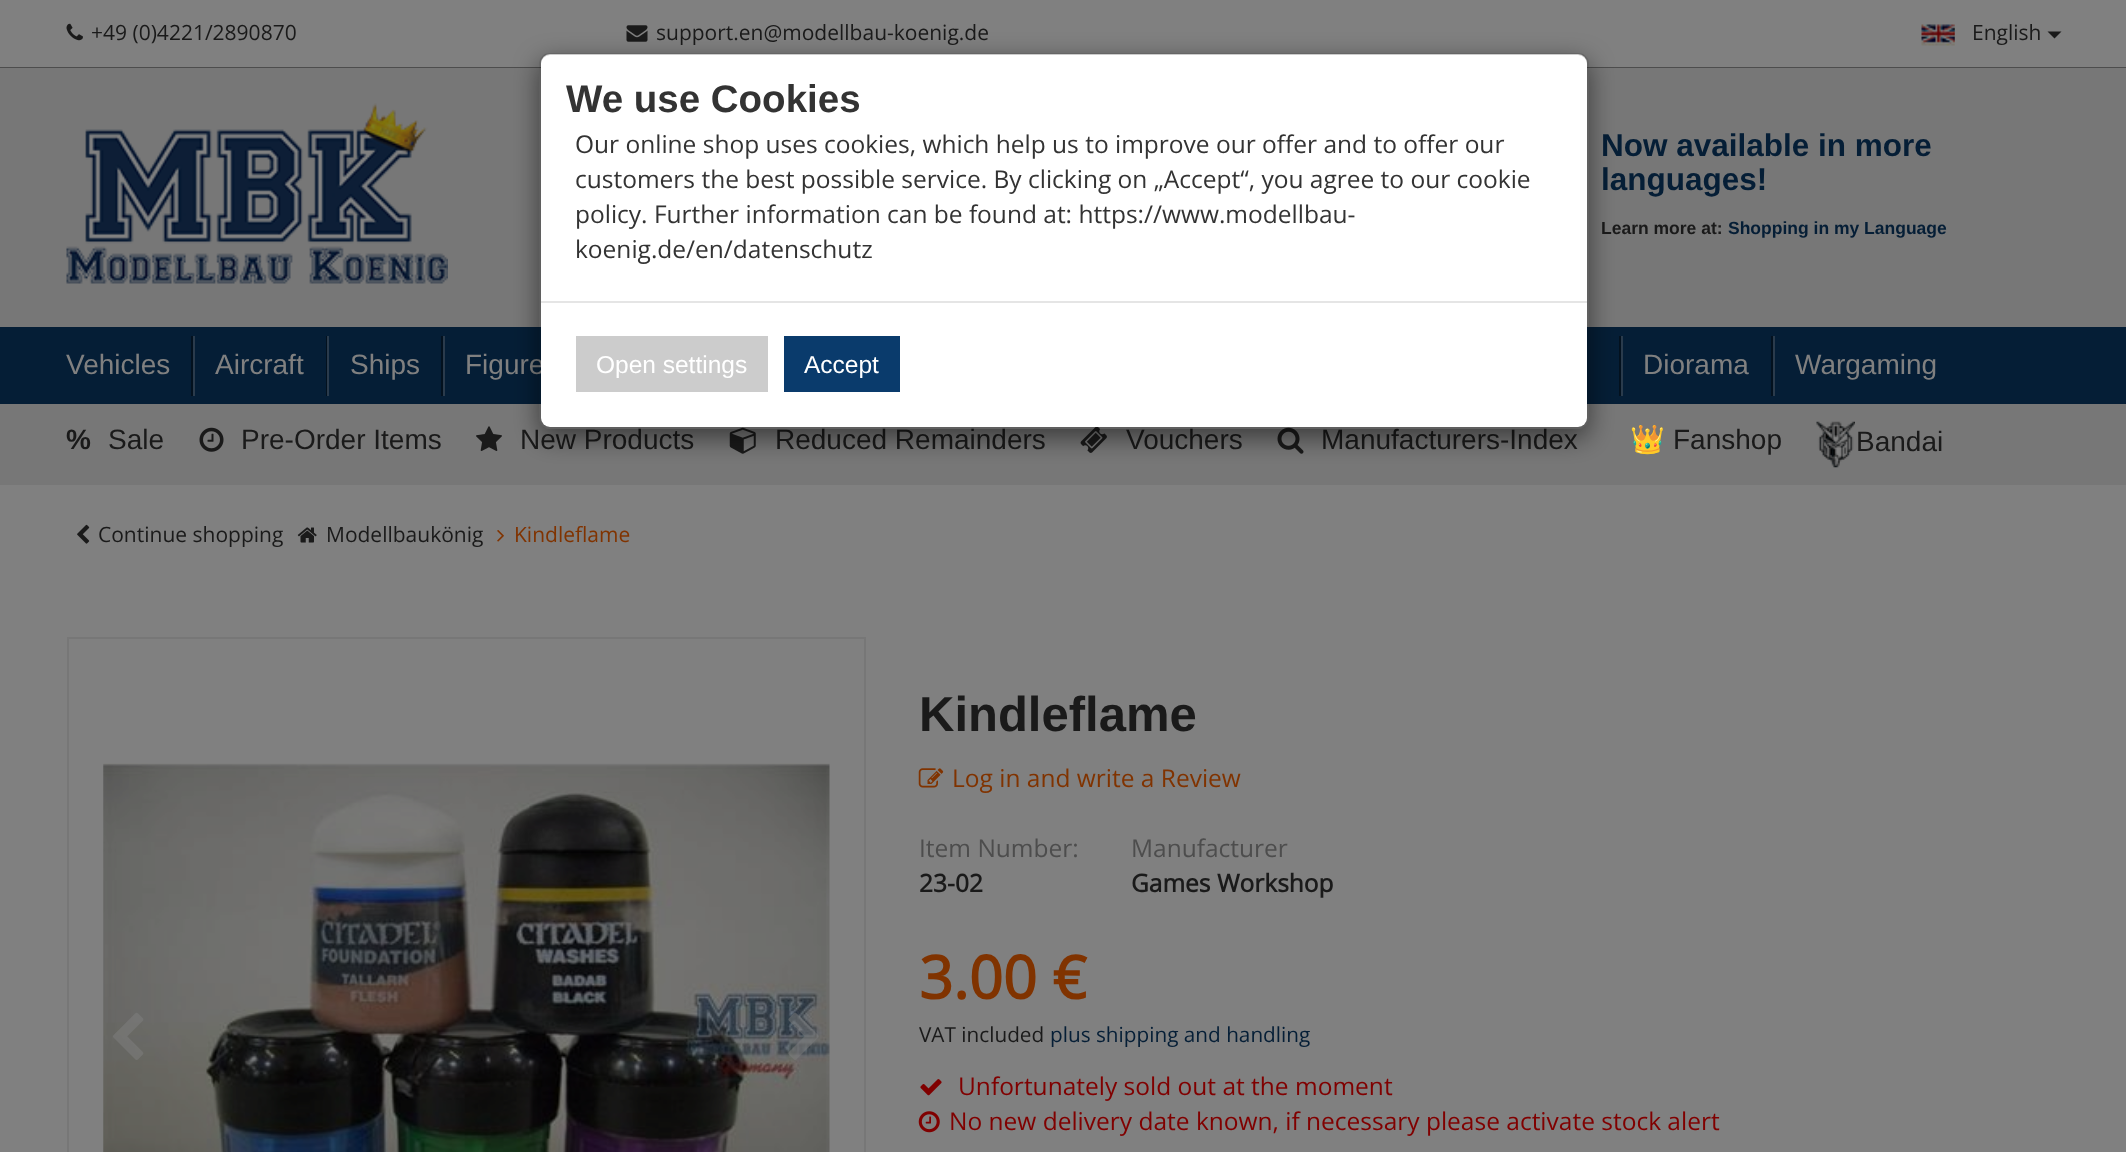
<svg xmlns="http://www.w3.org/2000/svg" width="2126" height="1152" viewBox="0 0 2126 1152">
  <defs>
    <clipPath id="clip1"><path d="M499 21H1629V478H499ZM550 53H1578C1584 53 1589 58 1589 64V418C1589 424 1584 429 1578 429H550C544 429 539 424 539 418V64C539 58 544 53 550 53Z" clip-rule="evenodd"/></clipPath>
    <filter id="blur1" x="-50%" y="-200%" width="200%" height="500%"><feGaussianBlur stdDeviation="13"/></filter>
  </defs>
  <rect width="100%" height="100%" fill="#808080"/>
  <rect x="0" y="67" width="2126" height="1" fill="#4d4d4d"/>
  <image x="66" y="23" width="17" height="18" href="img1.png"/>
  <text x="91" y="40" font-family="Open Sans" font-size="21" fill="#1a1a1a">+49 (0)4221/2890870</text>
  <image x="626" y="25" width="22" height="17" href="img2.png"/>
  <text x="656" y="40" font-family="Open Sans" font-size="21" fill="#1a1a1a">support.en@modellbau-koenig.de</text>
  <image x="1921" y="24" width="34" height="22" href="img3.png"/>
  <text x="1972" y="40" font-family="Open Sans" font-size="21" fill="#1a1a1a">English</text>
  <path d="M2047.5 31.5H2061.5L2054.5 38.5Z" fill="#1a1a1a"/>
  <rect x="0" y="68" width="2126" height="259" fill="#777777"/>
  <image x="66" y="103" width="382" height="181" href="img4.png"/>
  <text x="1601" y="156" font-family="Liberation Sans" font-size="31.5" font-weight="bold" fill="#051e36">Now available in more</text>
  <text x="1601" y="190" font-family="Liberation Sans" font-size="31.5" font-weight="bold" fill="#051e36">languages!</text>
  <text x="1601" y="234" font-family="Liberation Sans" font-size="17.5" font-weight="bold" fill="#1a1a1a">Learn more at:</text>
  <text x="1728" y="234" font-family="Liberation Sans" font-size="17.5" font-weight="bold" fill="#051e36">Shopping in my Language</text>
  <rect x="0" y="327" width="2126" height="77" fill="#051e36"/>
  <rect x="191" y="336" width="2" height="60" fill="#03111e"/>
  <text x="66" y="374" font-family="Liberation Sans" font-size="28" fill="#808080">Vehicles</text>
  <rect x="326" y="336" width="1" height="60" fill="#03111e"/>
  <rect x="193" y="336" width="2" height="60" fill="#2a3b4c"/>
  <text x="215" y="374" font-family="Liberation Sans" font-size="28" fill="#808080">Aircraft</text>
  <rect x="441" y="336" width="2" height="60" fill="#03111e"/>
  <rect x="327" y="336" width="2" height="60" fill="#2a3b4c"/>
  <text x="350" y="374" font-family="Liberation Sans" font-size="28" fill="#808080">Ships</text>
  <rect x="443" y="336" width="2" height="60" fill="#2a3b4c"/>
  <text x="465" y="374" font-family="Liberation Sans" font-size="28" fill="#808080">Figure</text>
  <rect x="1619" y="336" width="2" height="60" fill="#03111e"/>
  <rect x="1771" y="336" width="2" height="60" fill="#03111e"/>
  <rect x="1621" y="336" width="2" height="60" fill="#2a3b4c"/>
  <text x="1643" y="374" font-family="Liberation Sans" font-size="28" fill="#808080">Diorama</text>
  <rect x="1773" y="336" width="2" height="60" fill="#2a3b4c"/>
  <text x="1795" y="374" font-family="Liberation Sans" font-size="28" fill="#808080">Wargaming</text>
  <rect x="0" y="404" width="2126" height="81" fill="#777777"/>
  <text x="66" y="449" font-family="Liberation Sans" font-size="28" font-weight="bold" fill="#1a1a1a">%</text>
  <text x="108" y="449" font-family="Liberation Sans" font-size="28" fill="#1a1a1a">Sale</text>
  <image x="199" y="427" width="25" height="25" href="img5.png"/>
  <text x="241" y="449" font-family="Liberation Sans" font-size="28" fill="#1a1a1a">Pre-Order Items</text>
  <image x="476" y="426" width="26" height="25" href="img6.png"/>
  <text x="520" y="449" font-family="Liberation Sans" font-size="28" fill="#1a1a1a">New Products</text>
  <image x="729" y="427" width="27" height="27" href="img7.png"/>
  <text x="775" y="449" font-family="Liberation Sans" font-size="28" fill="#1a1a1a">Reduced Remainders</text>
  <image x="1080" y="427" width="27" height="26" href="img8.png"/>
  <text x="1126" y="449" font-family="Liberation Sans" font-size="28" fill="#1a1a1a">Vouchers</text>
  <image x="1277" y="427" width="27" height="27" href="img9.png"/>
  <text x="1321" y="449" font-family="Liberation Sans" font-size="28" fill="#1a1a1a">Manufacturers-Index</text>
  <text x="1630" y="449" font-family="Noto Color Emoji" font-size="28" fill="#1a1a1a">👑</text>
  <text x="1673" y="449" font-family="Liberation Sans" font-size="28" fill="#1a1a1a">Fanshop</text>
  <image x="1816" y="421" width="39" height="47" href="img10.png"/>
  <text x="1856" y="451" font-family="Liberation Sans" font-size="28" fill="#1a1a1a">Bandai</text>
  <image x="77" y="524" width="13" height="20" href="img11.png"/>
  <text x="98" y="542" font-family="Open Sans" font-size="21" fill="#1a1a1a">Continue shopping</text>
  <image x="297" y="527" width="20" height="16" href="img12.png"/>
  <text x="326" y="542" font-family="Open Sans" font-size="21" fill="#1a1a1a">Modellbaukönig</text>
  <image x="497" y="530" width="7" height="12" href="img13.png"/>
  <text x="514" y="542" font-family="Open Sans" font-size="21" fill="#803300">Kindleflame</text>
  <rect x="68" y="638" width="797" height="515" fill="none" stroke="#777777" stroke-width="2"/>
  <image x="103" y="763" width="727" height="389" href="img14.png"/>
  <image x="113" y="1012" width="31" height="48" href="img15.png"/>
  <image x="788" y="1012" width="31" height="48" href="img16.png"/>
  <text x="919" y="731" font-family="Liberation Sans" font-size="49" font-weight="bold" fill="#1a1a1a">Kindleflame</text>
  <image x="918" y="768" width="26" height="20" href="img17.png"/>
  <text x="952" y="787" font-family="Open Sans" font-size="24.5" fill="#803300">Log in and write a Review</text>
  <text x="919" y="857" font-family="Open Sans" font-size="24.5" fill="#4d4d4d">Item Number:</text>
  <text x="919" y="892" font-family="Open Sans" font-size="24.5" font-weight="bold" fill="#1a1a1a">23-02</text>
  <text x="1131" y="857" font-family="Open Sans" font-size="24.5" fill="#4d4d4d">Manufacturer</text>
  <text x="1131" y="892" font-family="Open Sans" font-size="24.5" font-weight="bold" fill="#1a1a1a">Games Workshop</text>
  <text x="919" y="999" font-family="Open Sans" font-size="59.5" font-weight="bold" fill="#803300">3.00 €</text>
  <text x="919" y="1042" font-family="Open Sans" font-size="20.75" fill="#1a1a1a">VAT included</text>
  <text x="1050" y="1042" font-family="Open Sans" font-size="20.75" fill="#051e36">plus shipping and handling</text>
  <image x="920" y="1079" width="22" height="17" href="img18.png"/>
  <text x="958" y="1095" font-family="Open Sans" font-size="24.5" fill="#800000">Unfortunately sold out at the moment</text>
  <image x="918" y="1111" width="22" height="22" href="img19.png"/>
  <text x="949" y="1130" font-family="Open Sans" font-size="24.5" fill="#800000">No new delivery date known, if necessary please activate stock alert</text>
  <g clip-path="url(#clip1)">
    <rect x="539" y="61" width="1050" height="377" rx="11" fill="#000000" fill-opacity="0.5" filter="url(#blur1)"/>
  </g>
  <rect x="541" y="54" width="1046" height="373" rx="9" fill="#ffffff"/>
  <rect x="540" y="54" width="1048" height="374" rx="10" fill="none" stroke="#000000" stroke-opacity="0.2" stroke-width="2"/>
  <text x="566" y="112" font-family="Liberation Sans" font-size="38.5" font-weight="bold" fill="#333333">We use Cookies</text>
  <text x="575" y="153" font-family="Open Sans" font-size="24.5" fill="#333333">Our online shop uses cookies, which help us to improve our offer and to offer our</text>
  <text x="575" y="188" font-family="Open Sans" font-size="24.5" fill="#333333">customers the best possible service. By clicking on „Accept“, you agree to our cookie</text>
  <text x="575" y="223" font-family="Open Sans" font-size="24.5" fill="#333333">policy. Further information can be found at: https://www.modellbau-</text>
  <text x="575" y="258" font-family="Open Sans" font-size="24.5" fill="#333333">koenig.de/en/datenschutz</text>
  <rect x="541" y="301" width="1046" height="2" fill="#e5e5e5"/>
  <rect x="576" y="336" width="192" height="56" fill="#cccccc"/>
  <text x="596" y="373" font-family="Liberation Sans" font-size="24.5" fill="#ffffff">Open settings</text>
  <rect x="784" y="336" width="116" height="56" fill="#0a3b6c"/>
  <text x="804" y="373" font-family="Liberation Sans" font-size="24.5" fill="#ffffff">Accept</text>
</svg>
